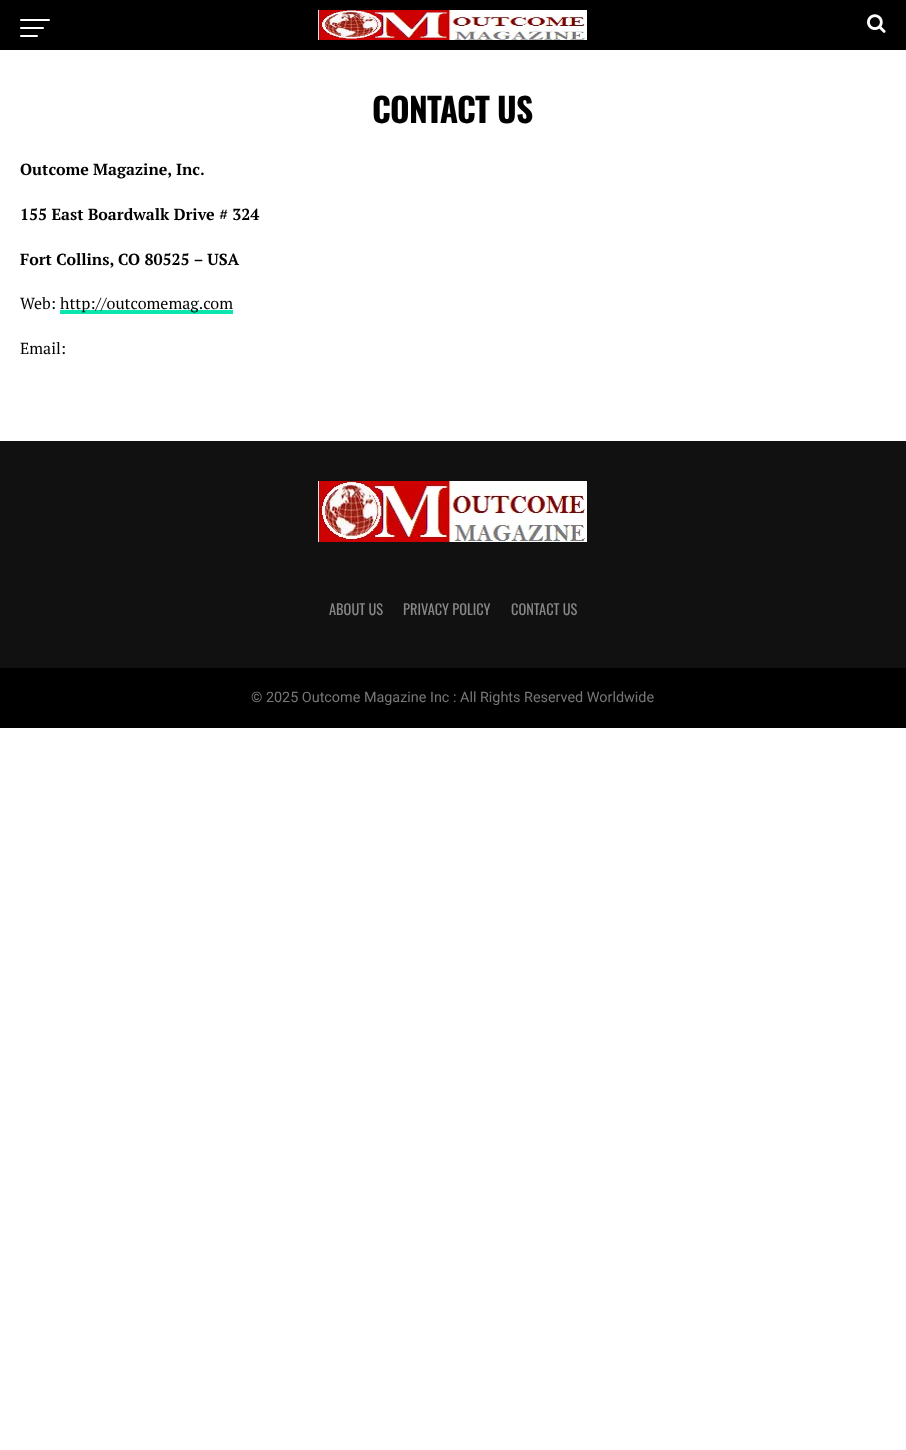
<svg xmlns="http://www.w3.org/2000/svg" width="906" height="1450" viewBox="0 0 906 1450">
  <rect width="100%" height="100%" fill="#ffffff"/>
  <rect x="0" y="0" width="906" height="50" fill="#000000"/>
  <rect x="20" y="19" width="30" height="2" rx="1" fill="#ffffff"/>
  <rect x="20" y="27" width="24" height="2" rx="1" fill="#ffffff"/>
  <rect x="20" y="35" width="18" height="2" rx="1" fill="#ffffff"/>
  <image x="318" y="10" width="269" height="30" href="img1.png"/>
  <image x="867" y="14" width="19" height="19" href="img2.png"/>
  <text x="372" y="123" font-family="Oswald" font-size="33.5" font-weight="bold" letter-spacing="-0.75" fill="#000000">CONTACT US</text>
  <text x="20" y="175" font-family="PT Serif" font-size="16" font-weight="bold" fill="#000000">Outcome Magazine, Inc.</text>
  <text x="20" y="220" font-family="PT Serif" font-size="16" font-weight="bold" fill="#000000">155 East Boardwalk Drive # 324</text>
  <text x="20" y="265" font-family="PT Serif" font-size="16" font-weight="bold" fill="#000000">Fort Collins, CO 80525 – USA</text>
  <text x="20" y="309" font-family="PT Serif" font-size="16" fill="#000000">Web:</text>
  <rect x="60" y="310" width="173" height="4" fill="#0be6af"/>
  <text x="60" y="309" font-family="PT Serif" font-size="16" fill="#000000">http://outcomemag.com</text>
  <text x="20" y="354" font-family="PT Serif" font-size="16" fill="#000000">Email:</text>
  <rect x="0" y="441" width="906" height="227" fill="#111111"/>
  <image x="318" y="481" width="269" height="61" href="img3.png"/>
  <text x="329" y="615" font-family="Oswald" font-size="14.4" fill="#888888">ABOUT US</text>
  <text x="403" y="615" font-family="Oswald" font-size="14.4" fill="#888888">PRIVACY POLICY</text>
  <text x="511" y="615" font-family="Oswald" font-size="14.4" fill="#888888">CONTACT US</text>
  <rect x="0" y="668" width="906" height="60" fill="#000000"/>
  <text x="251" y="702" font-family="Roboto" font-size="14.4" fill="#777777">© 2025 Outcome Magazine Inc : All Rights Reserved Worldwide</text>
</svg>
